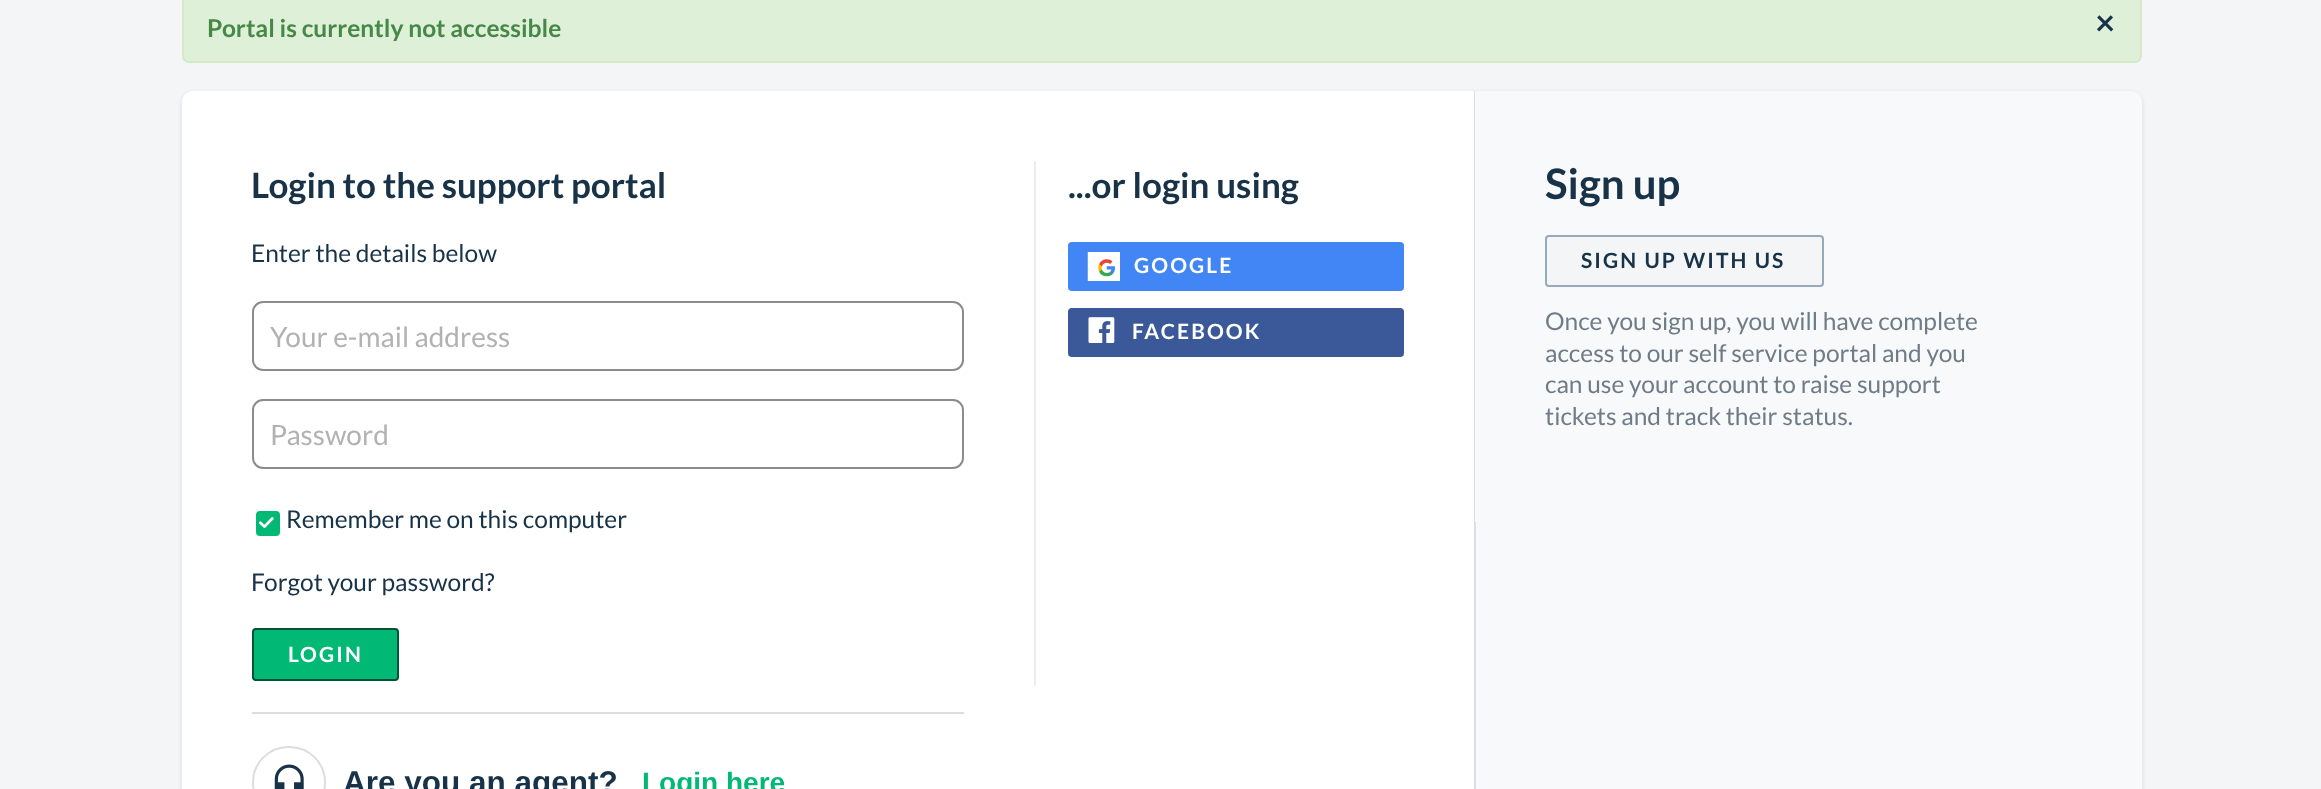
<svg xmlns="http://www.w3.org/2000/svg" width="2321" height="789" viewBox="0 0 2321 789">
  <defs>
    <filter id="blur1" x="-50%" y="-200%" width="200%" height="500%"><feGaussianBlur stdDeviation="2"/></filter>
  </defs>
  <rect width="100%" height="100%" fill="#f3f5f7"/>
  <rect x="183" y="-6" width="1958" height="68" rx="6" fill="#dff0d8" stroke="#d6e9c6" stroke-width="2"/>
  <text x="207" y="37" font-family="Lato" font-size="24.5" font-weight="bold" fill="#468847">Portal is currently not accessible</text>
  <text x="2095" y="35" font-family="Lato" font-size="35" font-weight="bold" fill="#183247">×</text>
  <rect x="182" y="93" width="1960" height="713" rx="11" fill="#3f3f44" fill-opacity="0.15" filter="url(#blur1)"/>
  <rect x="182" y="91" width="1960" height="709" rx="11" fill="#f8f9fa"/>
  <path d="M193 91H1475V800H193C187 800 182 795 182 789V102C182 96 187 91 193 91Z" fill="#ffffff"/>
  <rect x="1474" y="91" width="2" height="698" fill="#dadfe3"/>
  <text x="251" y="198" font-family="Lato" font-size="35" font-weight="bold" fill="#183247">Login to the support portal</text>
  <text x="251" y="262" font-family="Lato" font-size="24.5" fill="#183247">Enter the details below</text>
  <rect x="253" y="302" width="710" height="68" rx="10" fill="none" stroke="#8c8c8c" stroke-width="2"/>
  <text x="270" y="347" font-family="Lato" font-size="28" fill="#b2b2b2">Your e-mail address</text>
  <rect x="253" y="400" width="710" height="68" rx="10" fill="none" stroke="#8c8c8c" stroke-width="2"/>
  <text x="270" y="445" font-family="Lato" font-size="28" fill="#b2b2b2">Password</text>
  <rect x="257" y="512" width="22" height="23" rx="3" fill="#02b875" stroke="#02b875" stroke-width="2"/>
  <image x="259" y="517" width="15" height="11" href="img1.png"/>
  <text x="286" y="528" font-family="Lato" font-size="24.5" fill="#183247">Remember me on this computer</text>
  <text x="251" y="591" font-family="Lato" font-size="24.5" fill="#183247">Forgot your password?</text>
  <rect x="253" y="629" width="145" height="51" rx="3" fill="#02b875" stroke="#015335" stroke-width="2"/>
  <text x="288" y="662" font-family="Lato" font-size="21" font-weight="bold" letter-spacing="2.1" fill="#ffffff">LOGIN</text>
  <rect x="252" y="712" width="712" height="2" fill="#dddddd"/>
  <rect x="253" y="747" width="72" height="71" rx="35.5" fill="none" stroke="#dddddd" stroke-width="2"/>
  <image x="274" y="764" width="30" height="25" href="img2.png"/>
  <text x="343" y="793" font-family="Liberation Sans" font-size="31.5" font-weight="bold" fill="#183247">Are you an agent?</text>
  <text x="642" y="792" font-family="Liberation Sans" font-size="28" font-weight="bold" fill="#02b875">Login here</text>
  <rect x="1034" y="161" width="2" height="525" fill="#ebeef0"/>
  <text x="1068" y="198" font-family="Lato" font-size="35" font-weight="bold" fill="#183247">...or login using</text>
  <rect x="1068" y="242" width="336" height="49" rx="4" fill="#4285f4"/>
  <image x="1087" y="252" width="33" height="29" href="img3.png"/>
  <text x="1134" y="273" font-family="Lato" font-size="21" font-weight="bold" letter-spacing="2.1" fill="#ffffff">GOOGLE</text>
  <rect x="1068" y="308" width="336" height="49" rx="4" fill="#3b5998"/>
  <image x="1088" y="317" width="27" height="26" href="img4.png"/>
  <text x="1132" y="339" font-family="Lato" font-size="21" font-weight="bold" letter-spacing="2.1" fill="#ffffff">FACEBOOK</text>
  <path d="M1475 91H2129C2135 91 2140 96 2140 102V511C2140 517 2135 522 2129 522H1475Z" fill="#f8f9fa"/>
  <text x="1545" y="199" font-family="Lato" font-size="42" font-weight="bold" fill="#183247">Sign up</text>
  <rect x="1546" y="236" width="277" height="50" rx="3" fill="#f3f5f7" stroke="#97a9ba" stroke-width="2"/>
  <text x="1581" y="268" font-family="Lato" font-size="21" font-weight="bold" letter-spacing="2.1" fill="#183247">SIGN UP WITH US</text>
  <text x="1545" y="330" font-family="Lato" font-size="24.5" fill="#6f7c87">Once you sign up, you will have complete</text>
  <text x="1545" y="362" font-family="Lato" font-size="24.5" fill="#6f7c87">access to our self service portal and you</text>
  <text x="1545" y="393" font-family="Lato" font-size="24.5" fill="#6f7c87">can use your account to raise support</text>
  <text x="1545" y="425" font-family="Lato" font-size="24.5" fill="#6f7c87">tickets and track their status.</text>
</svg>
